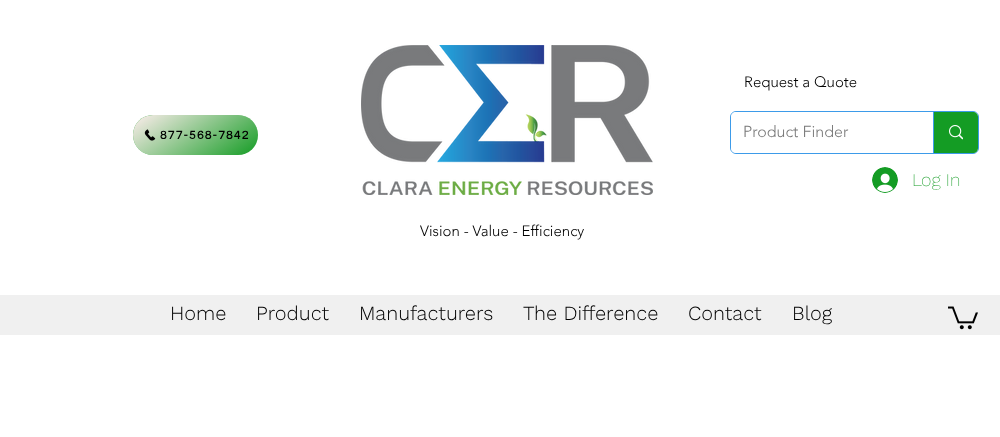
<svg xmlns="http://www.w3.org/2000/svg" width="1000" height="437" viewBox="0 0 1000 437">
  <defs>
    <linearGradient id="g1" gradientUnits="userSpaceOnUse" x1="166" y1="92" x2="225" y2="178"><stop offset="0" stop-color="#ffeeee"/><stop offset="1" stop-color="#ffeeee" stop-opacity="0"/></linearGradient>
  </defs>
  <rect width="100%" height="100%" fill="#ffffff"/>
  <text x="744" y="87" font-family="'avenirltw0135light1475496'" font-size="15" font-weight="300" fill="#000000">Request a Quote</text>
  <rect x="133" y="115" width="125" height="40" rx="20" fill="#149c24"/>
  <rect x="133" y="115" width="125" height="40" rx="20" fill="url(#g1)"/>
  <image x="144" y="129" width="12" height="12" href="img1.png"/>
  <text x="160" y="139" font-family="Questrial" font-size="12" font-weight="bold" letter-spacing="1.25" fill="#000000">877-568-7842</text>
  <image x="361" y="45" width="292" height="150" href="img2.png"/>
  <text x="420" y="236" font-family="'avenirltw0135light1475496'" font-size="15" font-weight="300" fill="#000000">Vision - Value - Efficiency</text>
  <rect x="730.5" y="111.5" width="248" height="42" rx="5.5" fill="none" stroke="#3d9be9"/>
  <rect x="731" y="112" width="247" height="41" rx="5" fill="#ffffff"/>
  <text x="743" y="137" font-family="'avenirltw0135light1475496'" font-size="16" font-weight="300" fill="#787878">Product Finder</text>
  <path d="M933 112H973C976 112 978 114 978 117V148C978 151 976 153 973 153H933Z" fill="#149c24"/>
  <rect x="933" y="112" width="1" height="41" fill="#3d9be9"/>
  <image x="949" y="125" width="14" height="15" href="img3.png"/>
  <image x="872" y="167" width="26" height="26" href="img4.png"/>
  <text x="912" y="186" font-family="Work Sans" font-size="18" font-weight="200" fill="#149c24">Log In</text>
  <rect x="0" y="295" width="1000" height="40" fill="#f0f0f0"/>
  <text x="170" y="320" font-family="Work Sans" font-size="20" font-weight="300" fill="#000000">Home</text>
  <text x="256" y="320" font-family="Work Sans" font-size="20" font-weight="300" fill="#000000">Product</text>
  <text x="359" y="320" font-family="Work Sans" font-size="20" font-weight="300" fill="#000000">Manufacturers</text>
  <text x="523" y="320" font-family="Work Sans" font-size="20" font-weight="300" fill="#000000">The Difference</text>
  <text x="688" y="320" font-family="Work Sans" font-size="20" font-weight="300" fill="#000000">Contact</text>
  <text x="792" y="320" font-family="Work Sans" font-size="20" font-weight="300" fill="#000000">Blog</text>
  <image x="948" y="306" width="30" height="24" href="img5.png"/>
</svg>
